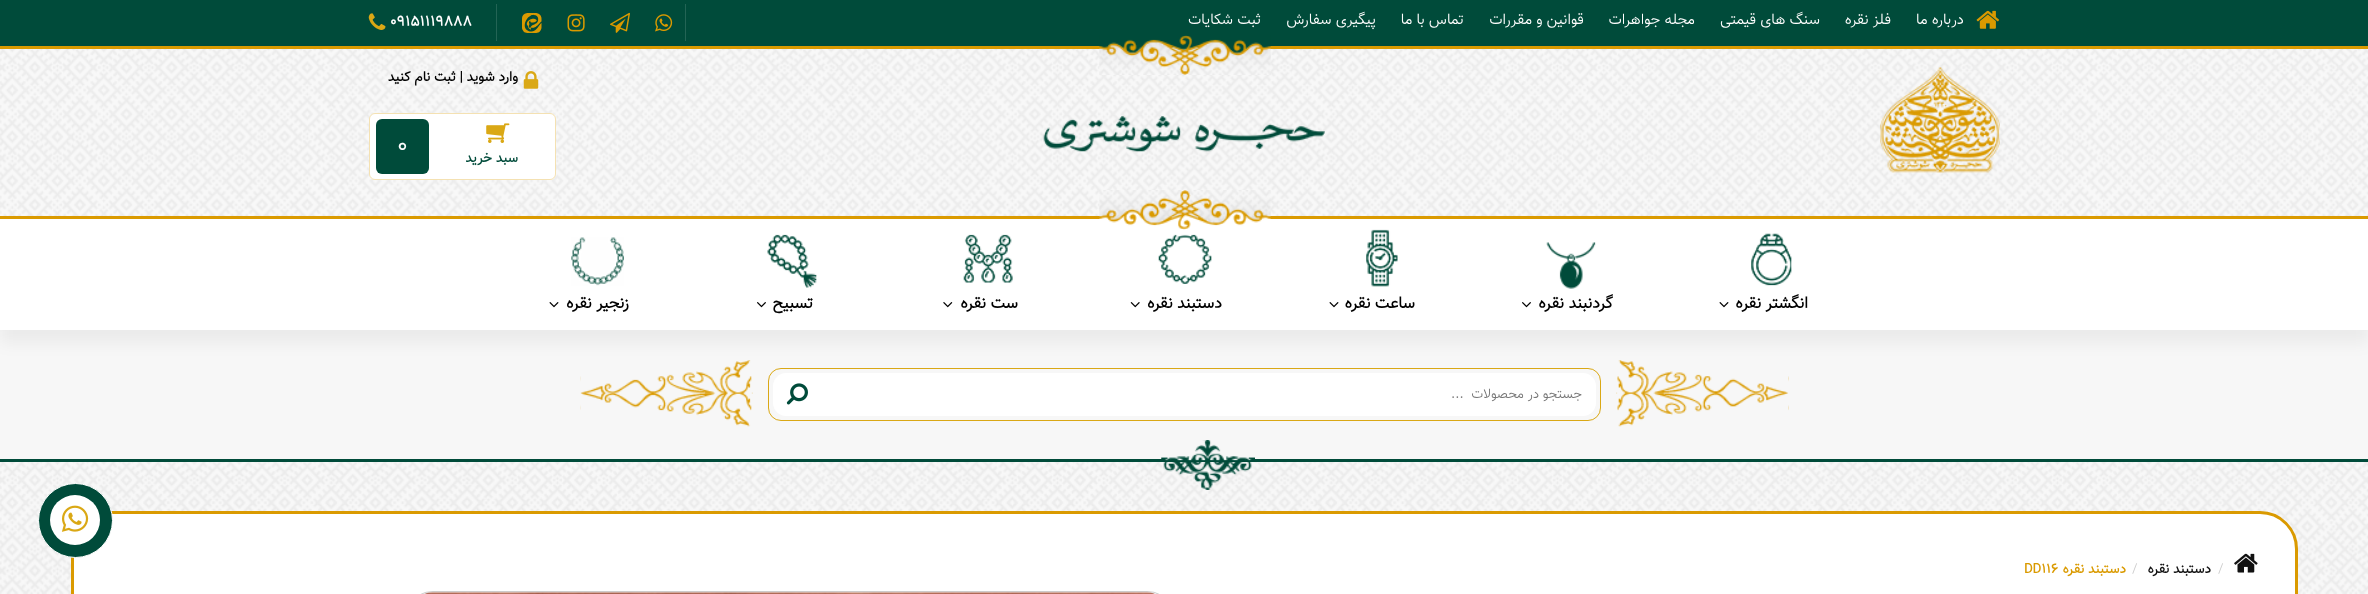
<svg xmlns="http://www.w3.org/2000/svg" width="2368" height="594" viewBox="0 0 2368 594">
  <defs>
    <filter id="blur1" x="-50%" y="-200%" width="200%" height="500%"><feGaussianBlur stdDeviation="8"/></filter>
  </defs>
  <rect width="100%" height="100%" fill="#f7f7f7"/>
  <rect x="0" y="13" width="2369" height="330" fill="#000000" fill-opacity="0.05" filter="url(#blur1)"/>
  <rect x="0" y="0" width="2368" height="46" fill="#004b3a"/>
  <rect x="0" y="46" width="2368" height="3" fill="#da9a00"/>
  <image x="1976" y="10" width="23" height="19" href="img1.png"/>
  <text x="1964" y="24" font-family="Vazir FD" font-size="15" font-weight="300" direction="rtl" fill="#ffffff">درباره ما</text>
  <text x="1891" y="24" font-family="Vazir FD" font-size="15" font-weight="300" direction="rtl" fill="#ffffff">فلز نقره</text>
  <text x="1820" y="24" font-family="Vazir FD" font-size="15" font-weight="300" direction="rtl" fill="#ffffff">سنگ های قیمتی</text>
  <text x="1695" y="24" font-family="Vazir FD" font-size="15" font-weight="300" direction="rtl" fill="#ffffff">مجله جواهرات</text>
  <text x="1584" y="24" font-family="Vazir FD" font-size="15" font-weight="300" direction="rtl" fill="#ffffff">قوانین و مقررات</text>
  <text x="1464" y="24" font-family="Vazir FD" font-size="15" font-weight="300" direction="rtl" fill="#ffffff">تماس با ما</text>
  <text x="1376" y="24" font-family="Vazir FD" font-size="15" font-weight="300" direction="rtl" fill="#ffffff">پیگیری سفارش</text>
  <text x="1261" y="24" font-family="Vazir FD" font-size="15" font-weight="300" direction="rtl" fill="#ffffff">ثبت شکایات</text>
  <rect x="685" y="4" width="1" height="37" fill="#236455"/>
  <rect x="496" y="4" width="1" height="37" fill="#236455"/>
  <image x="655" y="14" width="18" height="18" href="img2.png"/>
  <image x="610" y="12" width="20" height="21" href="img3.png"/>
  <image x="567" y="14" width="18" height="18" href="img4.png"/>
  <text x="522" y="33" font-family="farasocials" font-size="20" fill="#da9a00">$</text>
  <text x="390" y="26" font-family="Vazir FD" font-size="15" font-weight="bold" fill="#ffffff">09151119888</text>
  <image x="368" y="13" width="18" height="17" href="img5.png"/>
  <image x="0" y="49" width="2368" height="167" href="img7.png"/>
  <image x="1099" y="35" width="172" height="40" href="img6.png"/>
  <rect x="0" y="216" width="2368" height="3" fill="#da9a00"/>
  <image x="1880" y="67" width="120" height="106" href="img8.png"/>
  <image x="1043" y="116" width="282" height="36" href="img9.png"/>
  <image x="523" y="71" width="16" height="18" href="img10.png"/>
  <text x="518" y="81" font-family="Vazir FD" font-size="13.75" font-weight="bold" direction="rtl" fill="#000000">وارد شوید | ثبت نام کنید</text>
  <rect x="369" y="113" width="187" height="67" rx="6" fill="#ffffff"/>
  <rect x="369.5" y="113.5" width="186" height="66" rx="5.5" fill="none" stroke="#da9a00" stroke-opacity="0.3"/>
  <image x="486" y="123" width="24" height="20" href="img11.png"/>
  <rect x="376" y="119" width="53" height="55" rx="6" fill="#004b3a"/>
  <text x="397" y="153" font-family="Vazir FD" font-size="25" font-weight="300" fill="#ffffff">0</text>
  <text x="518" y="162" font-family="Vazir FD" font-size="13.75" font-weight="bold" direction="rtl" fill="#004b3a">سبد خرید</text>
  <rect x="0" y="219" width="2368" height="111" fill="#ffffff"/>
  <image x="1099" y="190" width="172" height="40" href="img12.png"/>
  <image x="1751" y="233" width="41" height="53" href="img13.png"/>
  <text x="1808" y="308" font-family="Vazir FD" font-size="16.25" font-weight="bold" direction="rtl" fill="#000000">انگشتر نقره</text>
  <image x="1719" y="302" width="10" height="6" href="img14.png"/>
  <image x="1546" y="242" width="50" height="47" href="img15.png"/>
  <text x="1613" y="308" font-family="Vazir FD" font-size="16.25" font-weight="bold" direction="rtl" fill="#000000">گردنبند نقره</text>
  <image x="1522" y="302" width="9" height="6" href="img16.png"/>
  <image x="1366" y="229" width="32" height="58" href="img17.png"/>
  <text x="1415" y="308" font-family="Vazir FD" font-size="16.25" font-weight="bold" direction="rtl" fill="#000000">ساعت نقره</text>
  <image x="1329" y="302" width="10" height="6" href="img14.png"/>
  <image x="1158" y="234" width="54" height="50" href="img18.png"/>
  <text x="1222" y="308" font-family="Vazir FD" font-size="16.25" font-weight="bold" direction="rtl" fill="#000000">دستبند نقره</text>
  <image x="1130" y="302" width="10" height="6" href="img19.png"/>
  <image x="963" y="234" width="50" height="49" href="img20.png"/>
  <text x="1018" y="308" font-family="Vazir FD" font-size="16.25" font-weight="bold" direction="rtl" fill="#000000">ست نقره</text>
  <image x="943" y="302" width="10" height="6" href="img21.png"/>
  <image x="767" y="234" width="50" height="54" href="img22.png"/>
  <text x="813" y="308" font-family="Vazir FD" font-size="16.25" font-weight="bold" direction="rtl" fill="#000000">تسبیح</text>
  <image x="757" y="302" width="9" height="6" href="img16.png"/>
  <image x="571" y="237" width="53" height="49" href="img23.png"/>
  <text x="629" y="308" font-family="Vazir FD" font-size="16.25" font-weight="bold" direction="rtl" fill="#000000">زنجیر نقره</text>
  <image x="549" y="302" width="10" height="6" href="img14.png"/>
  <image x="1616" y="360" width="173" height="67" href="img24.png"/>
  <rect x="768.5" y="368.5" width="832" height="52" rx="12.5" fill="none" stroke="#daa815"/>
  <path d="M829 373H1583C1590 373 1596 379 1596 386V403C1596 410 1590 416 1583 416H829Z" fill="#ffffff"/>
  <text x="1582" y="398" font-family="Vazir FD" font-size="13.5" font-weight="300" direction="rtl" fill="#757575" xml:space="preserve">جستجو در محصولات  ...</text>
  <path d="M786 373H829V416H786C779 416 773 410 773 403V386C773 379 779 373 786 373Z" fill="#ffffff"/>
  <image x="786" y="383" width="22" height="22" href="img25.png"/>
  <image x="580" y="360" width="173" height="67" href="img26.png"/>
  <image x="0" y="462" width="2368" height="132" href="img27.png"/>
  <rect x="0" y="459" width="2368" height="3" fill="#004b3a"/>
  <image x="1161" y="440" width="94" height="50" href="img28.png"/>
  <rect x="72.5" y="512.5" width="2224" height="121" rx="36.5" fill="#ffffff" stroke="#da9a00" stroke-width="3"/>
  <image x="2234" y="553" width="24" height="20" href="img29.png"/>
  <text x="2218" y="573" font-family="Vazir FD" font-size="13.75" font-weight="300" fill="#cccccc">/</text>
  <text x="2211" y="573" font-family="Vazir FD" font-size="13.75" font-weight="bold" direction="rtl" fill="#111111">دستبند نقره</text>
  <text x="2132" y="573" font-family="Vazir FD" font-size="13.75" font-weight="300" fill="#cccccc">/</text>
  <text x="2126" y="573" font-family="Vazir FD" font-size="13.75" font-weight="bold" direction="rtl" fill="#da9a00">دستبند نقره</text>
  <text x="2024" y="573" font-family="Vazir FD" font-size="13.75" font-weight="bold" fill="#da9a00">DD116</text>
  <rect x="414.5" y="591.5" width="751" height="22" rx="18.5" fill="none" stroke="#cccccc"/>
  <image x="424" y="592" width="731" height="2" href="img30.png"/>
  <circle cx="75.5" cy="520.5" r="37" fill="#004b3a" stroke="#ffffff"/>
  <circle cx="75" cy="520" r="25" fill="#ffffff"/>
  <image x="61" y="505" width="28" height="27" href="img31.png"/>
</svg>
